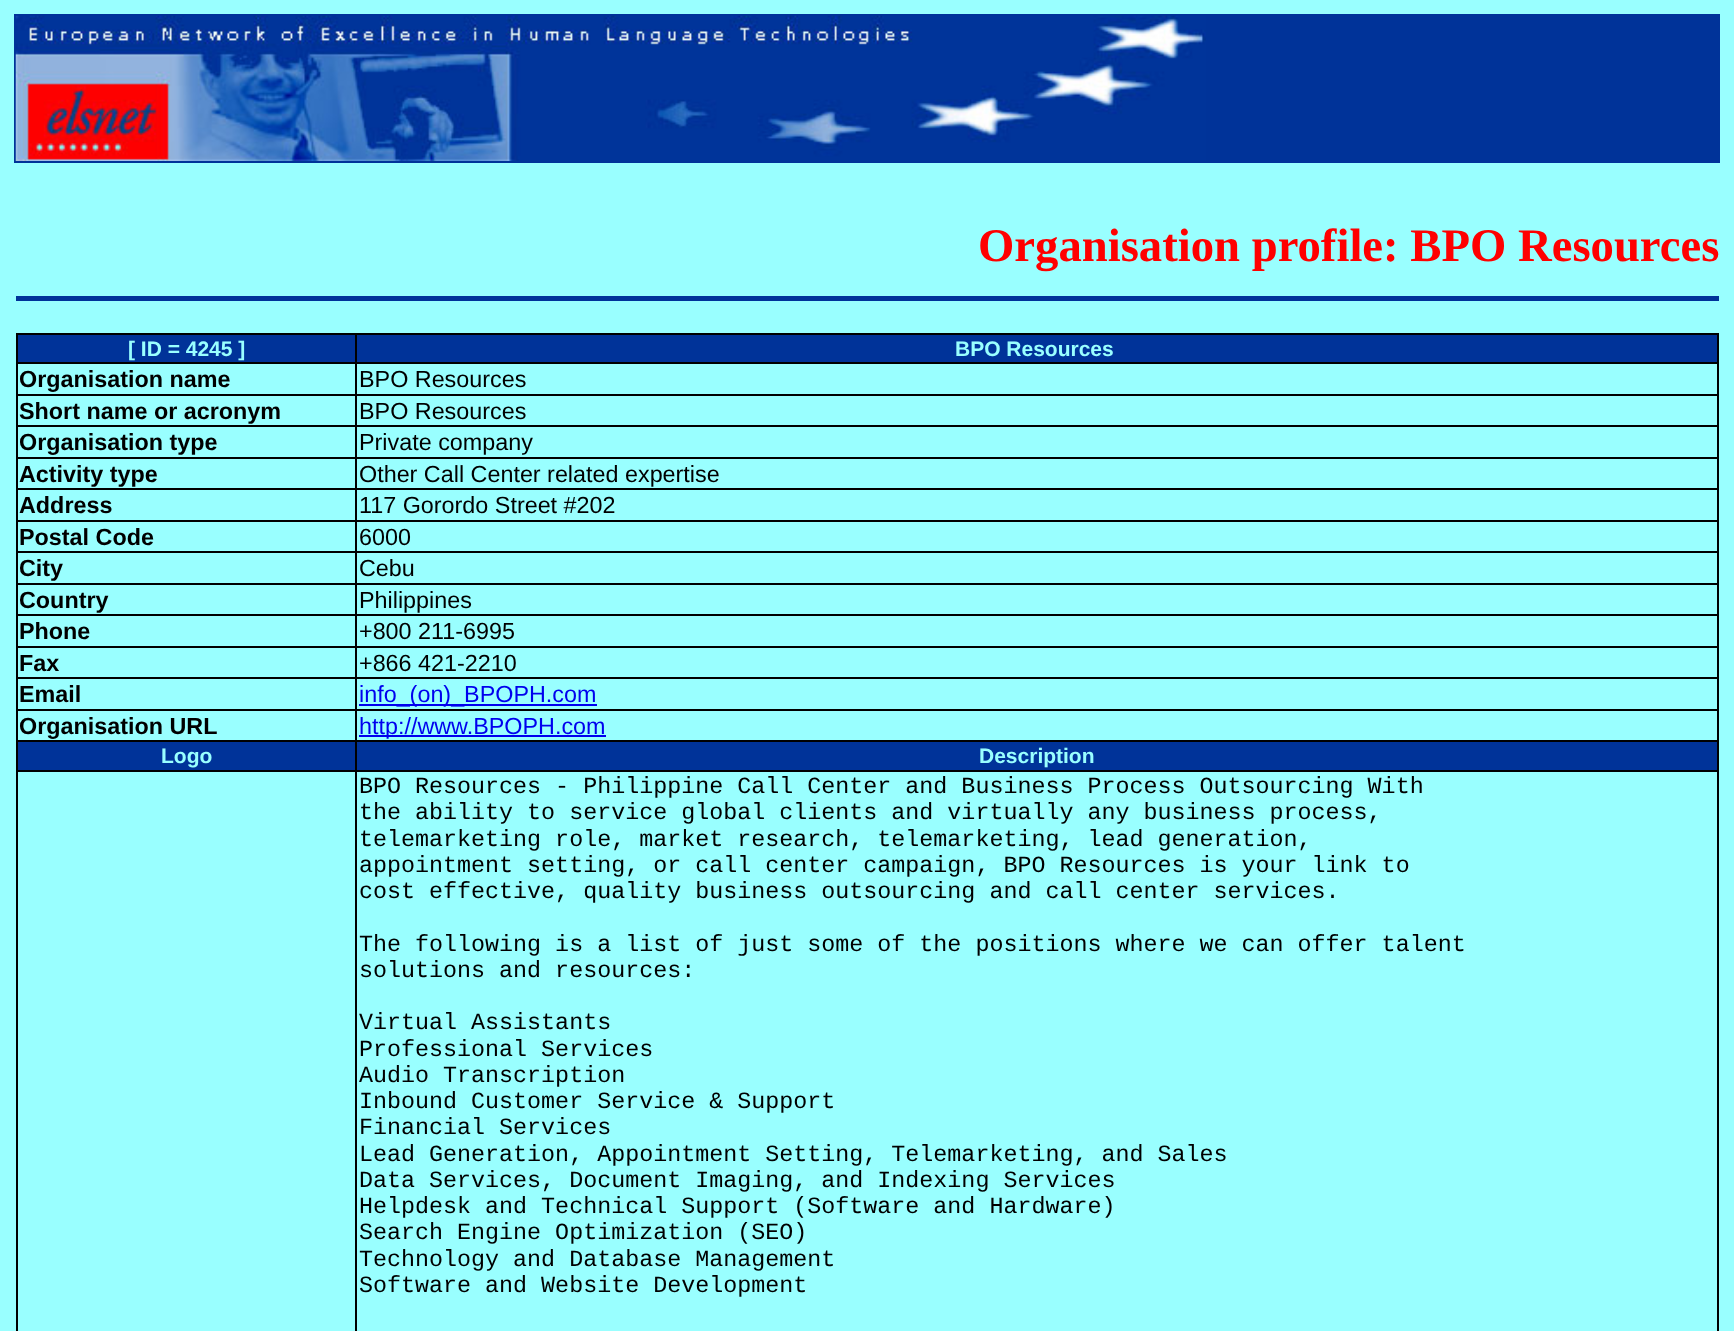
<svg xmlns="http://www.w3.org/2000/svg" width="1734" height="1331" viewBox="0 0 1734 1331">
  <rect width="100%" height="100%" fill="#99ffff"/>
  <rect x="14" y="14" width="1706" height="149" fill="#003399"/>
  <image x="15" y="15" width="1191" height="146" href="img1.png"/>
  <text x="978" y="261" font-family="Liberation Serif" font-size="46.7" font-weight="bold" fill="#ff0000">Organisation profile: BPO Resources</text>
  <rect x="16" y="296" width="1703" height="5" fill="#003399"/>
  <rect x="16" y="333" width="1703" height="2" fill="#000000"/>
  <rect x="1717" y="333" width="2" height="998" fill="#000000"/>
  <rect x="16" y="333" width="2" height="998" fill="#000000"/>
  <rect x="18" y="335" width="337" height="27" fill="#003399"/>
  <text x="128" y="356" font-family="Liberation Sans" font-size="21" font-weight="bold" fill="#99ffff">[ ID = 4245 ]</text>
  <rect x="357" y="335" width="1360" height="27" fill="#003399"/>
  <rect x="355" y="362" width="1364" height="2" fill="#000000"/>
  <rect x="355" y="394" width="1364" height="2" fill="#000000"/>
  <rect x="355" y="425" width="1364" height="2" fill="#000000"/>
  <rect x="355" y="457" width="1364" height="2" fill="#000000"/>
  <rect x="355" y="488" width="1364" height="2" fill="#000000"/>
  <rect x="355" y="520" width="1364" height="2" fill="#000000"/>
  <rect x="355" y="551" width="1364" height="2" fill="#000000"/>
  <rect x="355" y="583" width="1364" height="2" fill="#000000"/>
  <rect x="355" y="614" width="1364" height="2" fill="#000000"/>
  <rect x="355" y="646" width="1364" height="2" fill="#000000"/>
  <rect x="355" y="677" width="1364" height="2" fill="#000000"/>
  <rect x="355" y="709" width="1364" height="2" fill="#000000"/>
  <rect x="355" y="740" width="1364" height="2" fill="#000000"/>
  <rect x="355" y="770" width="1364" height="2" fill="#000000"/>
  <rect x="355" y="770" width="2" height="561" fill="#000000"/>
  <rect x="16" y="770" width="341" height="2" fill="#000000"/>
  <rect x="355" y="740" width="2" height="32" fill="#000000"/>
  <rect x="16" y="740" width="341" height="2" fill="#000000"/>
  <rect x="355" y="709" width="2" height="33" fill="#000000"/>
  <rect x="16" y="709" width="341" height="2" fill="#000000"/>
  <rect x="355" y="677" width="2" height="34" fill="#000000"/>
  <rect x="16" y="677" width="341" height="2" fill="#000000"/>
  <rect x="355" y="646" width="2" height="33" fill="#000000"/>
  <rect x="16" y="646" width="341" height="2" fill="#000000"/>
  <rect x="355" y="614" width="2" height="34" fill="#000000"/>
  <rect x="16" y="614" width="341" height="2" fill="#000000"/>
  <rect x="355" y="583" width="2" height="33" fill="#000000"/>
  <rect x="16" y="583" width="341" height="2" fill="#000000"/>
  <rect x="355" y="551" width="2" height="34" fill="#000000"/>
  <rect x="16" y="551" width="341" height="2" fill="#000000"/>
  <rect x="355" y="520" width="2" height="33" fill="#000000"/>
  <rect x="16" y="520" width="341" height="2" fill="#000000"/>
  <rect x="355" y="488" width="2" height="34" fill="#000000"/>
  <rect x="16" y="488" width="341" height="2" fill="#000000"/>
  <rect x="355" y="457" width="2" height="33" fill="#000000"/>
  <rect x="16" y="457" width="341" height="2" fill="#000000"/>
  <rect x="355" y="425" width="2" height="34" fill="#000000"/>
  <rect x="16" y="425" width="341" height="2" fill="#000000"/>
  <rect x="355" y="394" width="2" height="33" fill="#000000"/>
  <rect x="16" y="394" width="341" height="2" fill="#000000"/>
  <rect x="355" y="362" width="2" height="34" fill="#000000"/>
  <rect x="16" y="362" width="341" height="2" fill="#000000"/>
  <rect x="355" y="333" width="2" height="31" fill="#000000"/>
  <text x="955" y="356" font-family="Liberation Sans" font-size="21" font-weight="bold" fill="#99ffff">BPO Resources</text>
  <text x="19" y="387" font-family="Liberation Sans" font-size="23.35" font-weight="bold" fill="#000000">Organisation name</text>
  <text x="359" y="387" font-family="Liberation Sans" font-size="23.35" fill="#000000">BPO Resources</text>
  <text x="19" y="419" font-family="Liberation Sans" font-size="23.35" font-weight="bold" fill="#000000">Short name or acronym</text>
  <text x="359" y="419" font-family="Liberation Sans" font-size="23.35" fill="#000000">BPO Resources</text>
  <text x="19" y="450" font-family="Liberation Sans" font-size="23.35" font-weight="bold" fill="#000000">Organisation type</text>
  <text x="359" y="450" font-family="Liberation Sans" font-size="23.35" fill="#000000">Private company</text>
  <text x="19" y="482" font-family="Liberation Sans" font-size="23.35" font-weight="bold" fill="#000000">Activity type</text>
  <text x="359" y="482" font-family="Liberation Sans" font-size="23.35" fill="#000000">Other Call Center related expertise</text>
  <text x="19" y="513" font-family="Liberation Sans" font-size="23.35" font-weight="bold" fill="#000000">Address</text>
  <text x="359" y="513" font-family="Liberation Sans" font-size="23.35" fill="#000000">117 Gorordo Street #202</text>
  <text x="19" y="545" font-family="Liberation Sans" font-size="23.35" font-weight="bold" fill="#000000">Postal Code</text>
  <text x="359" y="545" font-family="Liberation Sans" font-size="23.35" fill="#000000">6000</text>
  <text x="19" y="576" font-family="Liberation Sans" font-size="23.35" font-weight="bold" fill="#000000">City</text>
  <text x="359" y="576" font-family="Liberation Sans" font-size="23.35" fill="#000000">Cebu</text>
  <text x="19" y="608" font-family="Liberation Sans" font-size="23.35" font-weight="bold" fill="#000000">Country</text>
  <text x="359" y="608" font-family="Liberation Sans" font-size="23.35" fill="#000000">Philippines</text>
  <text x="19" y="639" font-family="Liberation Sans" font-size="23.35" font-weight="bold" fill="#000000">Phone</text>
  <text x="359" y="639" font-family="Liberation Sans" font-size="23.35" fill="#000000">+800 211-6995</text>
  <text x="19" y="671" font-family="Liberation Sans" font-size="23.35" font-weight="bold" fill="#000000">Fax</text>
  <text x="359" y="671" font-family="Liberation Sans" font-size="23.35" fill="#000000">+866 421-2210</text>
  <text x="19" y="702" font-family="Liberation Sans" font-size="23.35" font-weight="bold" fill="#000000">Email</text>
  <rect x="359" y="704" width="238" height="2" fill="#0000ee"/>
  <text x="359" y="702" font-family="Liberation Sans" font-size="23.35" fill="#0000ee">info_(on)_BPOPH.com</text>
  <text x="19" y="734" font-family="Liberation Sans" font-size="23.35" font-weight="bold" fill="#000000">Organisation URL</text>
  <rect x="359" y="735" width="247" height="2" fill="#0000ee"/>
  <text x="359" y="734" font-family="Liberation Sans" font-size="23.35" fill="#0000ee">http://www.BPOPH.com</text>
  <rect x="18" y="742" width="337" height="28" fill="#003399"/>
  <text x="161" y="763" font-family="Liberation Sans" font-size="21" font-weight="bold" fill="#99ffff">Logo</text>
  <rect x="357" y="742" width="1360" height="28" fill="#003399"/>
  <text x="979" y="763" font-family="Liberation Sans" font-size="21" font-weight="bold" fill="#99ffff">Description</text>
  <text x="359" y="793" font-family="Liberation Mono" font-size="23.35" fill="#000000">BPO Resources - Philippine Call Center and Business Process Outsourcing With</text>
  <text x="359" y="819" font-family="Liberation Mono" font-size="23.35" fill="#000000">the ability to service global clients and virtually any business process,</text>
  <text x="359" y="846" font-family="Liberation Mono" font-size="23.35" fill="#000000">telemarketing role, market research, telemarketing, lead generation,</text>
  <text x="359" y="872" font-family="Liberation Mono" font-size="23.35" fill="#000000">appointment setting, or call center campaign, BPO Resources is your link to</text>
  <text x="359" y="898" font-family="Liberation Mono" font-size="23.35" fill="#000000">cost effective, quality business outsourcing and call center services.</text>
  <text x="359" y="951" font-family="Liberation Mono" font-size="23.35" fill="#000000">The following is a list of just some of the positions where we can offer talent</text>
  <text x="359" y="977" font-family="Liberation Mono" font-size="23.35" fill="#000000">solutions and resources:</text>
  <text x="359" y="1029" font-family="Liberation Mono" font-size="23.35" fill="#000000">Virtual Assistants</text>
  <text x="359" y="1056" font-family="Liberation Mono" font-size="23.35" fill="#000000">Professional Services</text>
  <text x="359" y="1082" font-family="Liberation Mono" font-size="23.35" fill="#000000">Audio Transcription</text>
  <text x="359" y="1108" font-family="Liberation Mono" font-size="23.35" fill="#000000">Inbound Customer Service &amp; Support</text>
  <text x="359" y="1134" font-family="Liberation Mono" font-size="23.35" fill="#000000">Financial Services</text>
  <text x="359" y="1161" font-family="Liberation Mono" font-size="23.35" fill="#000000">Lead Generation, Appointment Setting, Telemarketing, and Sales</text>
  <text x="359" y="1187" font-family="Liberation Mono" font-size="23.35" fill="#000000">Data Services, Document Imaging, and Indexing Services</text>
  <text x="359" y="1213" font-family="Liberation Mono" font-size="23.35" fill="#000000">Helpdesk and Technical Support (Software and Hardware)</text>
  <text x="359" y="1239" font-family="Liberation Mono" font-size="23.35" fill="#000000">Search Engine Optimization (SEO)</text>
  <text x="359" y="1266" font-family="Liberation Mono" font-size="23.35" fill="#000000">Technology and Database Management</text>
  <text x="359" y="1292" font-family="Liberation Mono" font-size="23.35" fill="#000000">Software and Website Development</text>
</svg>
